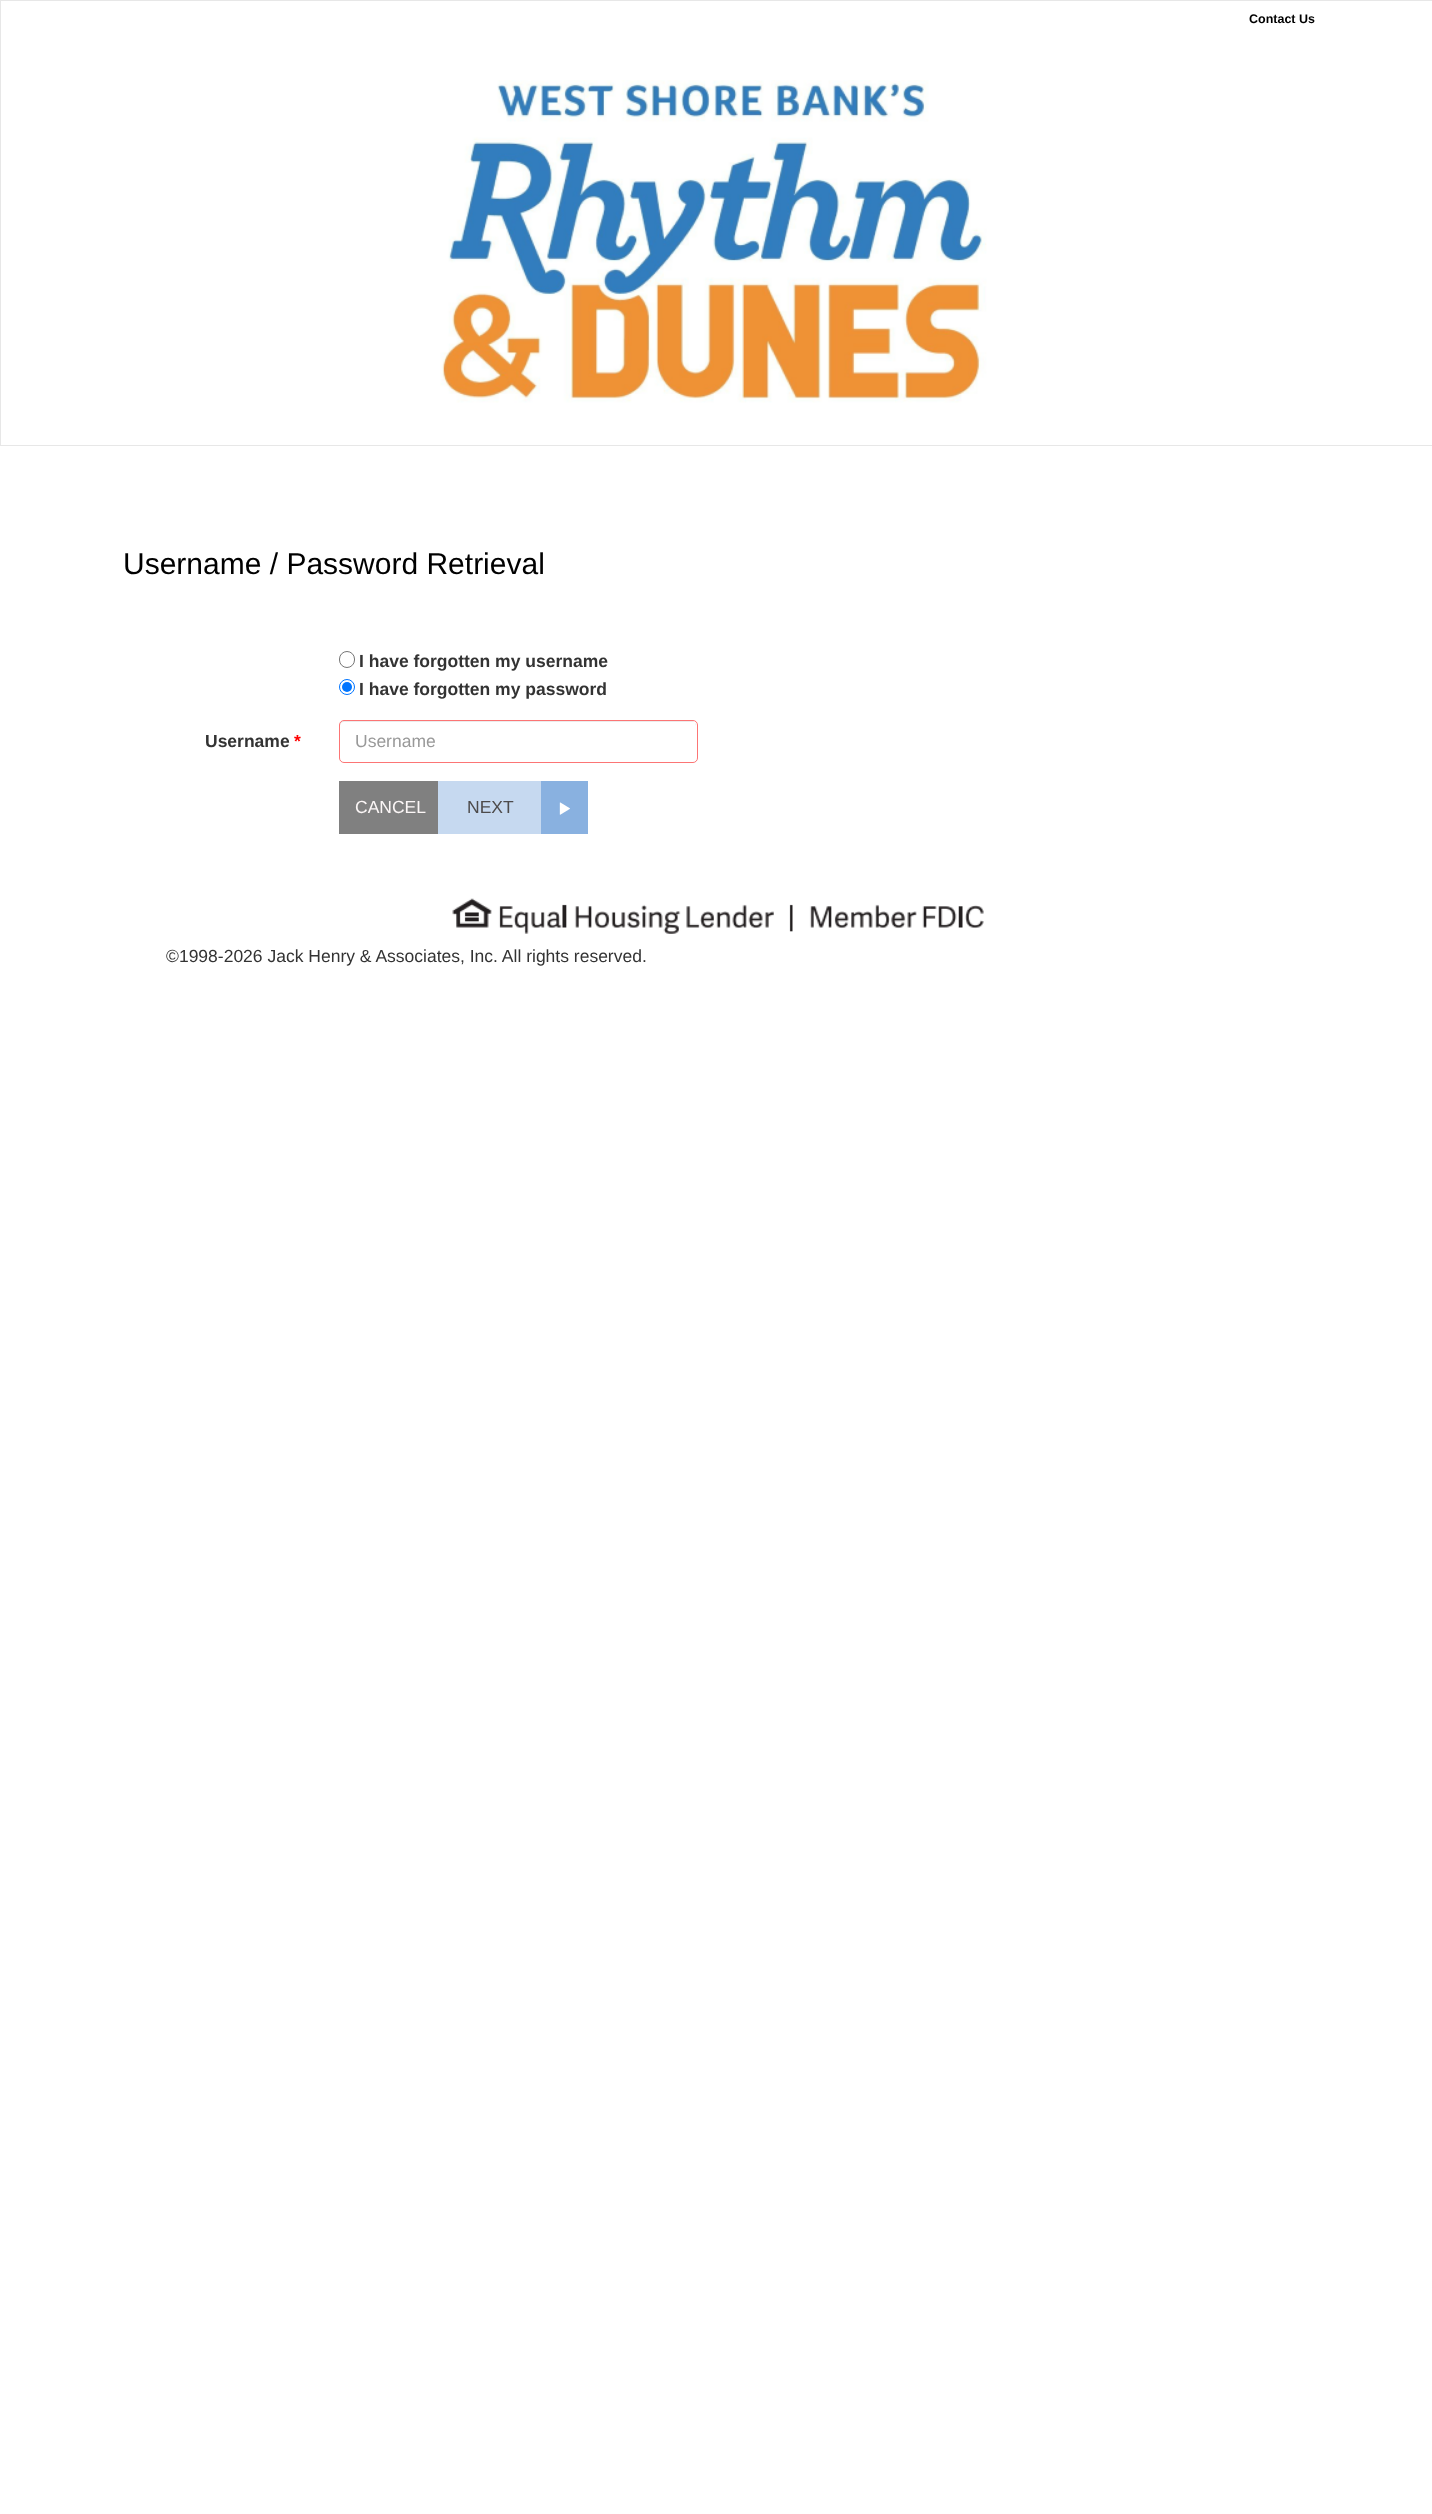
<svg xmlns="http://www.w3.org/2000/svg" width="1432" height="2514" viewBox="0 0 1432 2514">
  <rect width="100%" height="100%" fill="#ffffff"/>
  <rect x="0.5" y="0.5" width="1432" height="445" fill="none" stroke="#e7e7e7"/>
  <text x="1249" y="23" font-family="Liberation Sans" font-size="12.5" font-weight="bold" fill="#000000">Contact Us</text>
  <image x="440" y="80" width="547" height="323" href="img1.png"/>
  <text x="123" y="574" font-family="Liberation Sans" font-size="30" fill="#000000">Username / Password Retrieval</text>
  <rect x="339.5" y="651.5" width="15" height="16" rx="7.5" fill="none" stroke="#767676"/>
  <text x="359" y="667" font-family="Liberation Sans" font-size="17.5" font-weight="bold" fill="#333333">I have forgotten my username</text>
  <circle cx="347" cy="687" r="7.5" fill="none" stroke="#0075ff"/>
  <circle cx="347" cy="687" r="5" fill="#0075ff"/>
  <text x="359" y="695" font-family="Liberation Sans" font-size="17.5" font-weight="bold" fill="#333333">I have forgotten my password</text>
  <text x="205" y="747" font-family="Liberation Sans" font-size="17.5" font-weight="bold" fill="#333333">Username</text>
  <text x="294" y="747" font-family="Liberation Sans" font-size="17.5" font-weight="bold" fill="#ff0000">*</text>
  <path d="M344 722H694L696 724V726L695 723L693 721H344C341 721 340 723 340 726C340 724 342 722 344 722Z" fill="#ececec"/>
  <rect x="339.5" y="720.5" width="358" height="42" rx="4.5" fill="none" stroke="#fc7575"/>
  <text x="355" y="747" font-family="Liberation Sans" font-size="17.5" fill="#999999">Username</text>
  <rect x="339" y="781" width="99" height="53" fill="#808080"/>
  <text x="355" y="813" font-family="Liberation Sans" font-size="17.5" fill="#fbf6f6">CANCEL</text>
  <rect x="438" y="781" width="103" height="53" fill="#c6d9f0"/>
  <text x="467" y="813" font-family="Liberation Sans" font-size="17.5" fill="#4d4b4b">NEXT</text>
  <rect x="541" y="781" width="47" height="53" fill="#89b1e0"/>
  <image x="559" y="802" width="11" height="13" href="img2.png"/>
  <image x="452" y="898" width="532" height="36" href="img3.png"/>
  <text x="166" y="962" font-family="Liberation Sans" font-size="17.5" fill="#333333">©1998-2026 Jack Henry &amp; Associates, Inc. All rights reserved.</text>
</svg>
